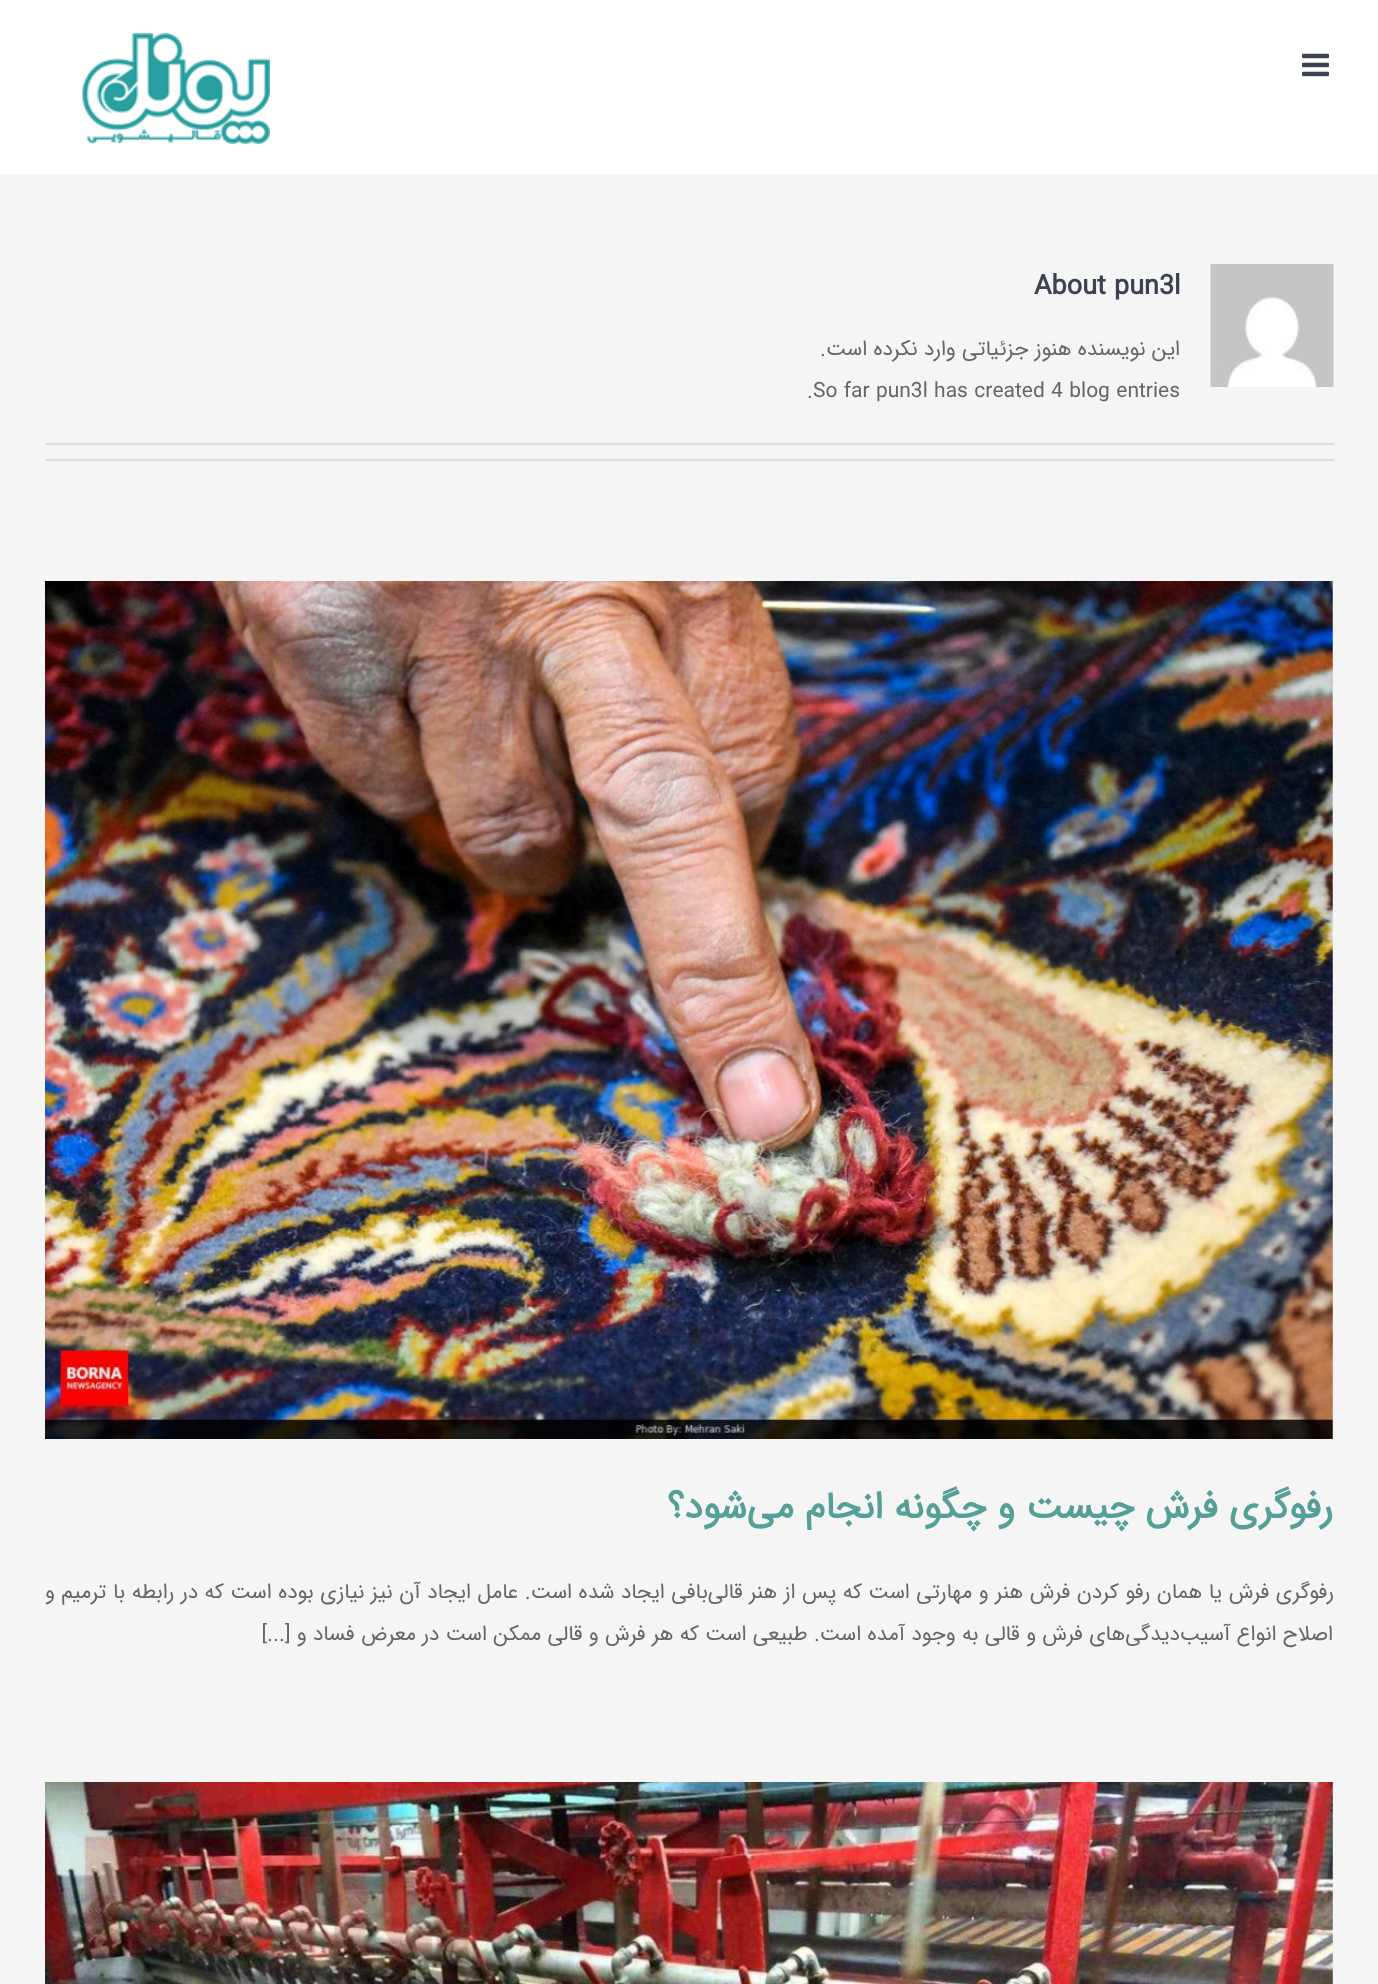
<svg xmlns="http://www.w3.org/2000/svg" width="1378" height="1984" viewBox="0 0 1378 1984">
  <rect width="100%" height="100%" fill="#f5f5f5"/>
  <rect x="0" y="0" width="1378" height="174" fill="#ffffff"/>
  <image x="1302" y="53" width="27" height="24" href="img1.png"/>
  <image x="82" y="33" width="188" height="111" href="img2.png"/>
  <image x="1210" y="264" width="124" height="123" href="img3.png"/>
  <text x="1034" y="294" font-family="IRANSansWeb" font-size="27" font-weight="bold" fill="#3b4251">About pun3l</text>
  <text x="1180" y="355" font-family="IRANSansWeb" font-size="21" direction="rtl" fill="#666666">این نویسنده هنوز جزئیاتی وارد نکرده است.</text>
  <text x="807" y="397" font-family="IRANSansWeb" font-size="21" fill="#666666">.So far pun3l has created 4 blog entries</text>
  <rect x="45" y="443" width="1289" height="2" fill="#e0dede"/>
  <rect x="45" y="459" width="1289" height="2" fill="#e0dede"/>
  <image x="45" y="581" width="1288" height="858" href="img4.png"/>
  <text x="1333" y="1518" font-family="IRANSansWeb" font-size="37.5" font-weight="bold" direction="rtl" fill="#549f97">رفوگری فرش چیست و چگونه انجام می‌شود؟</text>
  <text x="1334" y="1598" word-spacing="0.25" font-family="IRANSansWeb" font-size="21" direction="rtl" fill="#666666">رفوگری فرش یا همان رفو کردن فرش هنر و مهارتی است که پس از هنر قالی‌بافی ایجاد شده است. عامل ایجاد آن نیز نیازی بوده است که در رابطه با ترمیم و</text>
  <text x="1333" y="1640" font-family="IRANSansWeb" font-size="21" direction="rtl" fill="#666666">اصلاح انواع آسیب‌دیدگی‌های فرش و قالی به وجود آمده است. طبیعی است که هر فرش و قالی ممکن است در معرض فساد و [...]</text>
  <image x="45" y="1782" width="1288" height="202" href="img5.png"/>
</svg>
